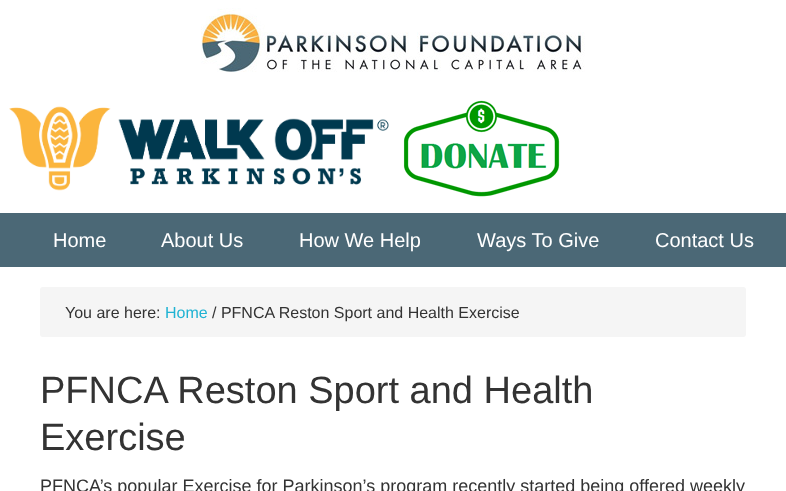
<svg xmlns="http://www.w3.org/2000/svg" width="786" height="491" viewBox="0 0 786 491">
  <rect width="100%" height="100%" fill="#ffffff"/>
  <image x="201" y="8" width="384" height="64" href="img1.png"/>
  <image x="9" y="106" width="380" height="85" href="img2.png"/>
  <image x="403" y="100" width="157" height="97" href="img3.png"/>
  <rect x="0" y="213" width="786" height="54" fill="#4b6876"/>
  <text x="53" y="247" font-family="Liberation Sans" font-size="20" fill="#ffffff">Home</text>
  <text x="161" y="247" font-family="Liberation Sans" font-size="20" fill="#ffffff">About Us</text>
  <text x="299" y="247" font-family="Liberation Sans" font-size="20" fill="#ffffff">How We Help</text>
  <text x="477" y="247" font-family="Liberation Sans" font-size="20" fill="#ffffff">Ways To Give</text>
  <text x="655" y="247" font-family="Liberation Sans" font-size="20" fill="#ffffff">Contact Us</text>
  <rect x="40" y="287" width="706" height="50" rx="3" fill="#f5f5f5"/>
  <text x="65" y="318" font-family="Liberation Sans" font-size="16" fill="#333333">You are here:</text>
  <text x="165" y="318" font-family="Liberation Sans" font-size="16" fill="#20b3d3">Home</text>
  <text x="212" y="318" font-family="Liberation Sans" font-size="16" fill="#333333">/ PFNCA Reston Sport and Health Exercise</text>
  <text x="40" y="403" font-family="Liberation Sans" font-size="38" fill="#333333">PFNCA Reston Sport and Health</text>
  <text x="40" y="450" font-family="Liberation Sans" font-size="38" fill="#333333">Exercise</text>
  <text x="40" y="492" font-family="Liberation Sans" font-size="18" fill="#333333">PFNCA’s popular Exercise for Parkinson’s program recently started being offered weekly</text>
</svg>
